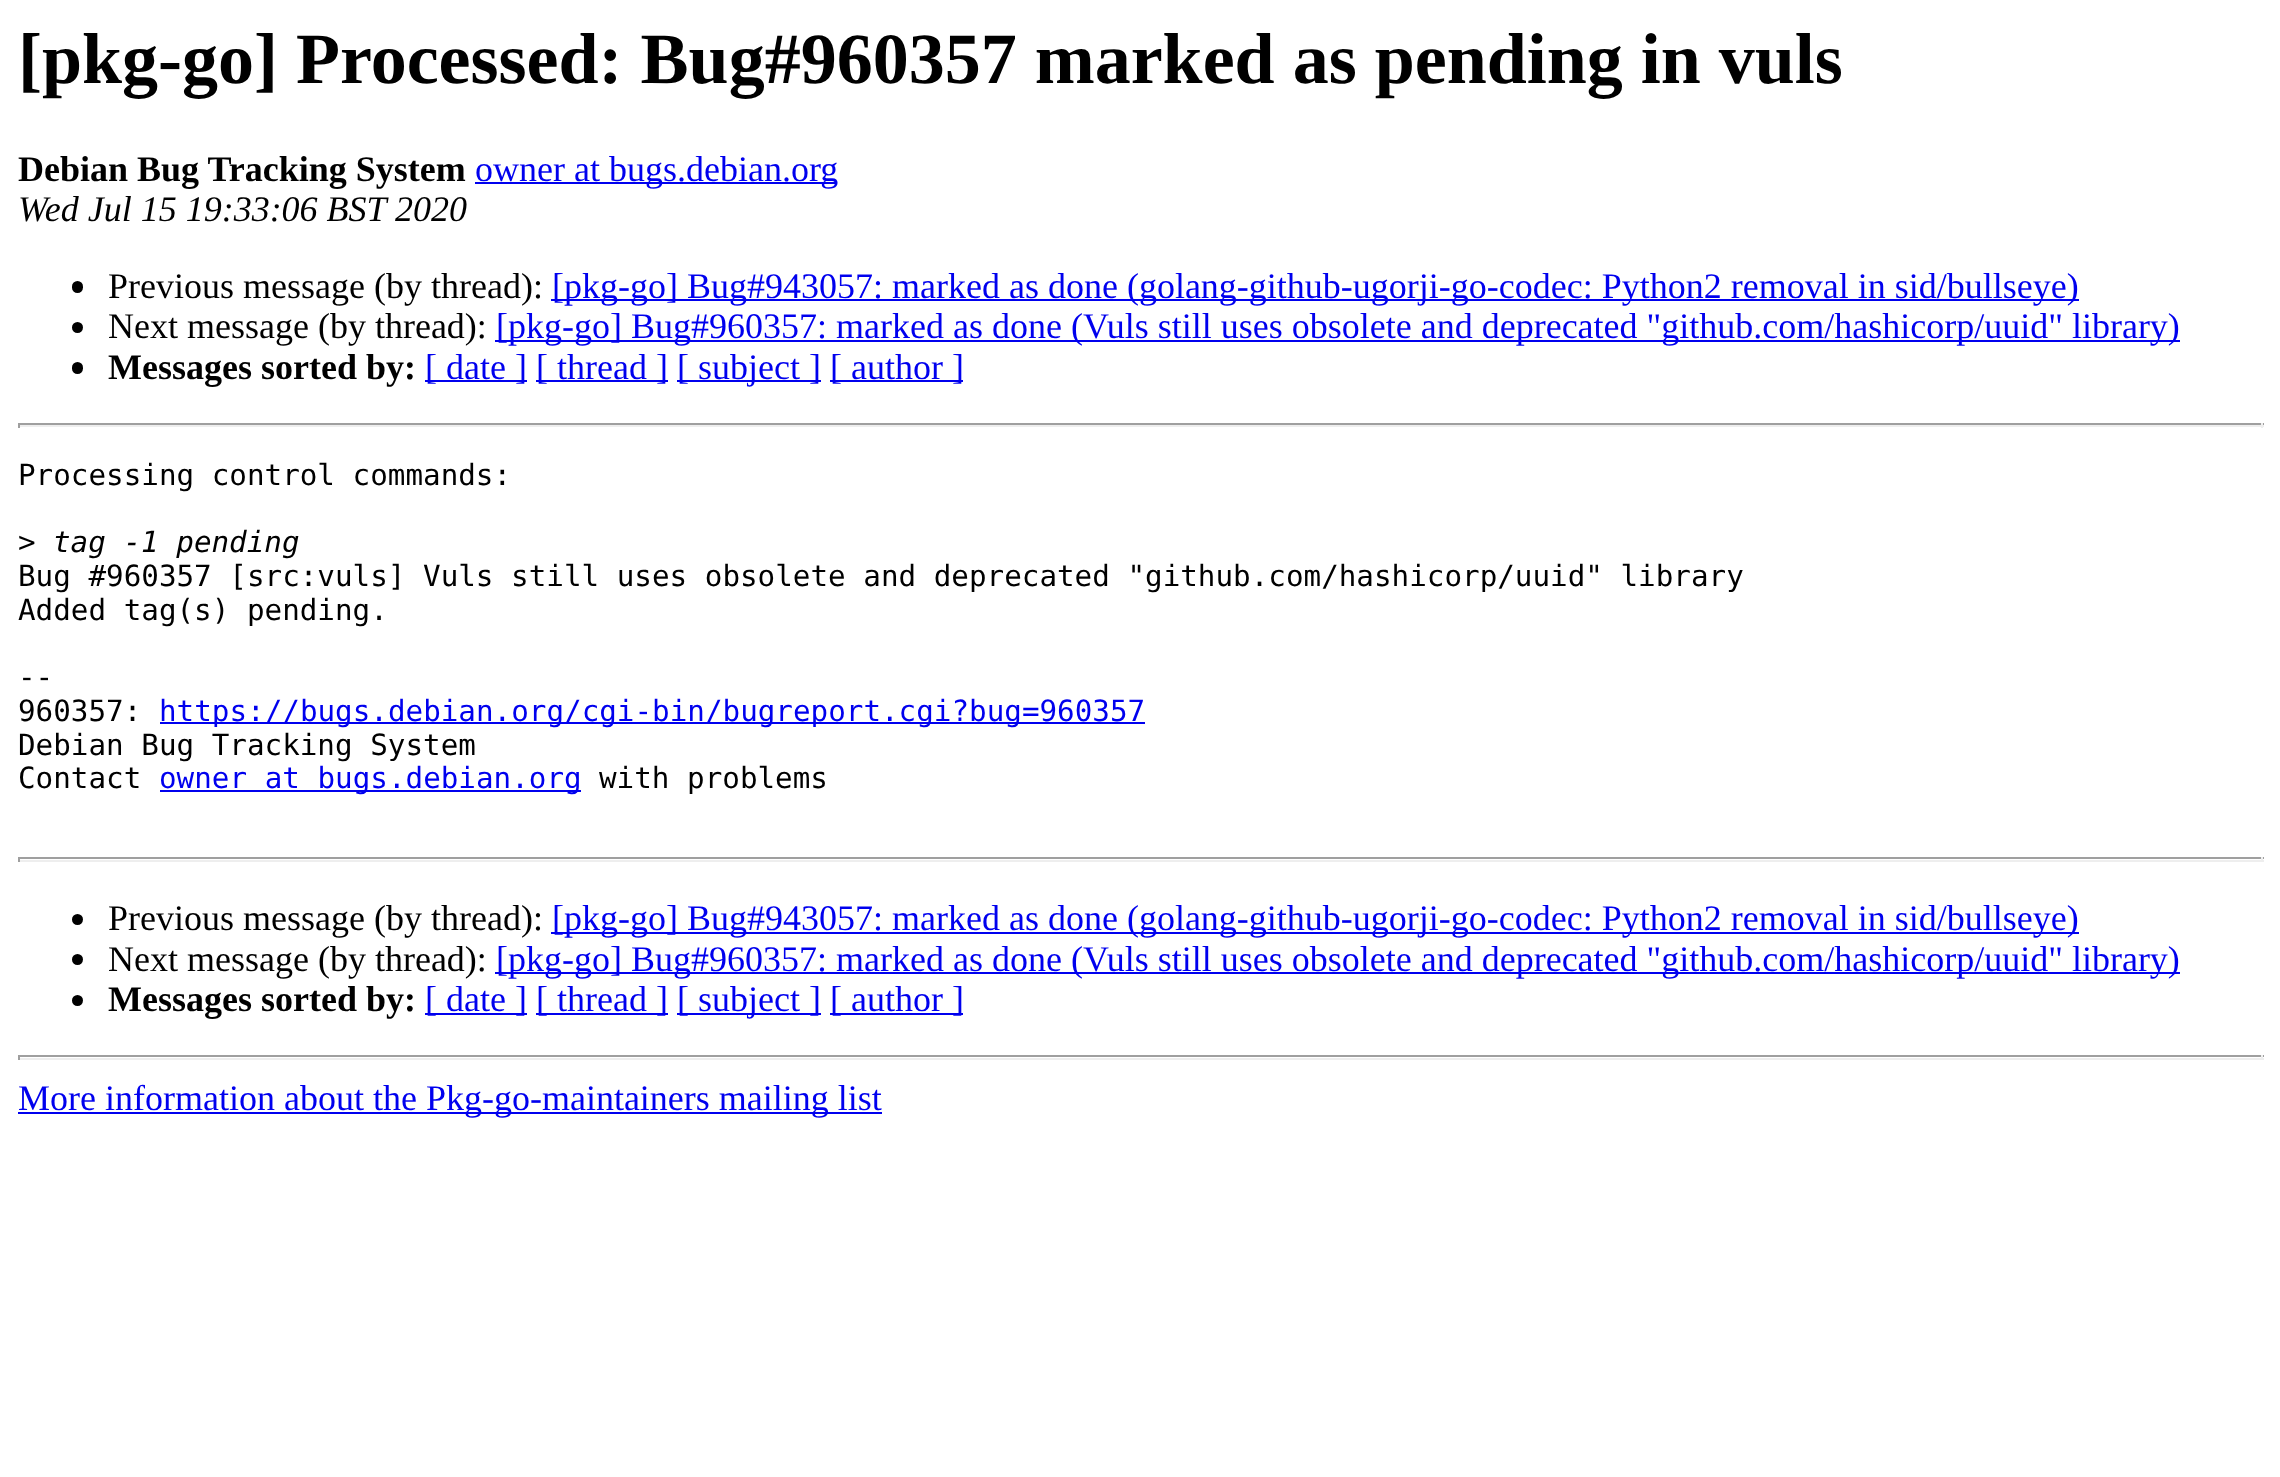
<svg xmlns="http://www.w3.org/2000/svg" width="2280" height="1477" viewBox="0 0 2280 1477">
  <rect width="100%" height="100%" fill="#ffffff"/>
  <text x="18" y="83" font-family="Liberation Serif" font-size="72" font-weight="bold" fill="#000000">[pkg-go] Processed: Bug#960357 marked as pending in vuls</text>
  <text x="18" y="181" font-family="Liberation Serif" font-size="36" font-weight="bold" fill="#000000">Debian Bug Tracking System</text>
  <rect x="475" y="182" width="362" height="2" fill="#0000ee"/>
  <text x="475" y="181" font-family="Liberation Serif" font-size="36" fill="#0000ee">owner at bugs.debian.org</text>
  <text x="18" y="221" font-family="Liberation Serif" font-size="36" font-style="italic" fill="#000000">Wed Jul 15 19:33:06 BST 2020</text>
  <rect x="72" y="281" width="11" height="12" rx="5.5" fill="#000000"/>
  <text x="108" y="298" font-family="Liberation Serif" font-size="36" fill="#000000">Previous message (by thread):</text>
  <rect x="551" y="299" width="1528" height="2" fill="#0000ee"/>
  <text x="552" y="298" font-family="Liberation Serif" font-size="36" fill="#0000ee">[pkg-go] Bug#943057: marked as done (golang-github-ugorji-go-codec: Python2 removal in sid/bullseye)</text>
  <circle cx="77.5" cy="327.5" r="5.5" fill="#000000"/>
  <text x="108" y="338" font-family="Liberation Serif" font-size="36" fill="#000000">Next message (by thread):</text>
  <rect x="495" y="340" width="1685" height="2" fill="#0000ee"/>
  <text x="496" y="338" font-family="Liberation Serif" font-size="36" fill="#0000ee">[pkg-go] Bug#960357: marked as done (Vuls still uses obsolete and deprecated "github.com/hashicorp/uuid" library)</text>
  <rect x="72" y="362" width="11" height="12" rx="5.5" fill="#000000"/>
  <text x="108" y="379" font-family="Liberation Serif" font-size="36" font-weight="bold" fill="#000000">Messages sorted by:</text>
  <rect x="425" y="380" width="102" height="2" fill="#0000ee"/>
  <text x="425" y="379" font-family="Liberation Serif" font-size="36" fill="#0000ee">[ date ]</text>
  <rect x="536" y="380" width="132" height="2" fill="#0000ee"/>
  <text x="536" y="379" font-family="Liberation Serif" font-size="36" fill="#0000ee">[ thread ]</text>
  <rect x="677" y="380" width="144" height="2" fill="#0000ee"/>
  <text x="677" y="379" font-family="Liberation Serif" font-size="36" fill="#0000ee">[ subject ]</text>
  <rect x="830" y="380" width="133" height="2" fill="#0000ee"/>
  <text x="830" y="379" font-family="Liberation Serif" font-size="36" fill="#0000ee">[ author ]</text>
  <rect x="18" y="423" width="2246" height="2" fill="#9f9f9f"/>
  <rect x="2261" y="423" width="2" height="5" fill="#eeeeee"/>
  <rect x="18" y="425" width="2246" height="2" fill="#eeeeee"/>
  <rect x="18" y="423" width="2" height="5" fill="#9f9f9f"/>
  <text x="18" y="485" font-family="DejaVu Sans Mono" font-size="29.25" fill="#000000">Processing control commands:</text>
  <text x="18" y="552" font-family="DejaVu Sans Mono" font-size="29.25" fill="#000000">&gt;</text>
  <text x="53" y="552" font-family="DejaVu Sans Mono" font-size="29.25" font-style="italic" fill="#000000">tag -1 pending</text>
  <text x="18" y="586" font-family="DejaVu Sans Mono" font-size="29.25" fill="#000000">Bug #960357 [src:vuls] Vuls still uses obsolete and deprecated "github.com/hashicorp/uuid" library</text>
  <text x="18" y="620" font-family="DejaVu Sans Mono" font-size="29.25" fill="#000000">Added tag(s) pending.</text>
  <text x="18" y="687" font-family="DejaVu Sans Mono" font-size="29.25" fill="#000000">--</text>
  <text x="18" y="721" font-family="DejaVu Sans Mono" font-size="29.25" fill="#000000">960357:</text>
  <rect x="160" y="722" width="985" height="2" fill="#0000ee"/>
  <text x="159" y="721" font-family="DejaVu Sans Mono" font-size="29.25" fill="#0000ee">https://bugs.debian.org/cgi-bin/bugreport.cgi?bug=960357</text>
  <text x="18" y="755" font-family="DejaVu Sans Mono" font-size="29.25" fill="#000000">Debian Bug Tracking System</text>
  <text x="18" y="788" font-family="DejaVu Sans Mono" font-size="29.25" fill="#000000">Contact</text>
  <rect x="160" y="790" width="421" height="2" fill="#0000ee"/>
  <text x="159" y="788" font-family="DejaVu Sans Mono" font-size="29.25" fill="#0000ee">owner at bugs.debian.org</text>
  <text x="599" y="788" font-family="DejaVu Sans Mono" font-size="29.25" fill="#000000">with problems</text>
  <rect x="18" y="857" width="2246" height="2" fill="#9f9f9f"/>
  <rect x="2261" y="857" width="2" height="5" fill="#eeeeee"/>
  <rect x="18" y="860" width="2246" height="2" fill="#eeeeee"/>
  <rect x="18" y="857" width="2" height="5" fill="#9f9f9f"/>
  <circle cx="77.5" cy="919.5" r="5.5" fill="#000000"/>
  <text x="108" y="930" font-family="Liberation Serif" font-size="36" fill="#000000">Previous message (by thread):</text>
  <rect x="551" y="932" width="1528" height="2" fill="#0000ee"/>
  <text x="552" y="930" font-family="Liberation Serif" font-size="36" fill="#0000ee">[pkg-go] Bug#943057: marked as done (golang-github-ugorji-go-codec: Python2 removal in sid/bullseye)</text>
  <circle cx="77.5" cy="959.5" r="5.5" fill="#000000"/>
  <text x="108" y="971" font-family="Liberation Serif" font-size="36" fill="#000000">Next message (by thread):</text>
  <rect x="495" y="972" width="1685" height="2" fill="#0000ee"/>
  <text x="496" y="971" font-family="Liberation Serif" font-size="36" fill="#0000ee">[pkg-go] Bug#960357: marked as done (Vuls still uses obsolete and deprecated "github.com/hashicorp/uuid" library)</text>
  <circle cx="77.5" cy="1000.5" r="5.5" fill="#000000"/>
  <text x="108" y="1011" font-family="Liberation Serif" font-size="36" font-weight="bold" fill="#000000">Messages sorted by:</text>
  <rect x="425" y="1013" width="102" height="2" fill="#0000ee"/>
  <text x="425" y="1011" font-family="Liberation Serif" font-size="36" fill="#0000ee">[ date ]</text>
  <rect x="536" y="1013" width="132" height="2" fill="#0000ee"/>
  <text x="536" y="1011" font-family="Liberation Serif" font-size="36" fill="#0000ee">[ thread ]</text>
  <rect x="677" y="1013" width="144" height="2" fill="#0000ee"/>
  <text x="677" y="1011" font-family="Liberation Serif" font-size="36" fill="#0000ee">[ subject ]</text>
  <rect x="830" y="1013" width="133" height="2" fill="#0000ee"/>
  <text x="830" y="1011" font-family="Liberation Serif" font-size="36" fill="#0000ee">[ author ]</text>
  <rect x="18" y="1055" width="2246" height="2" fill="#9f9f9f"/>
  <rect x="2261" y="1055" width="2" height="5" fill="#eeeeee"/>
  <rect x="18" y="1058" width="2246" height="2" fill="#eeeeee"/>
  <rect x="18" y="1055" width="2" height="5" fill="#9f9f9f"/>
  <rect x="18" y="1112" width="864" height="2" fill="#0000ee"/>
  <text x="18" y="1110" font-family="Liberation Serif" font-size="36" fill="#0000ee">More information about the Pkg-go-maintainers mailing list</text>
</svg>
